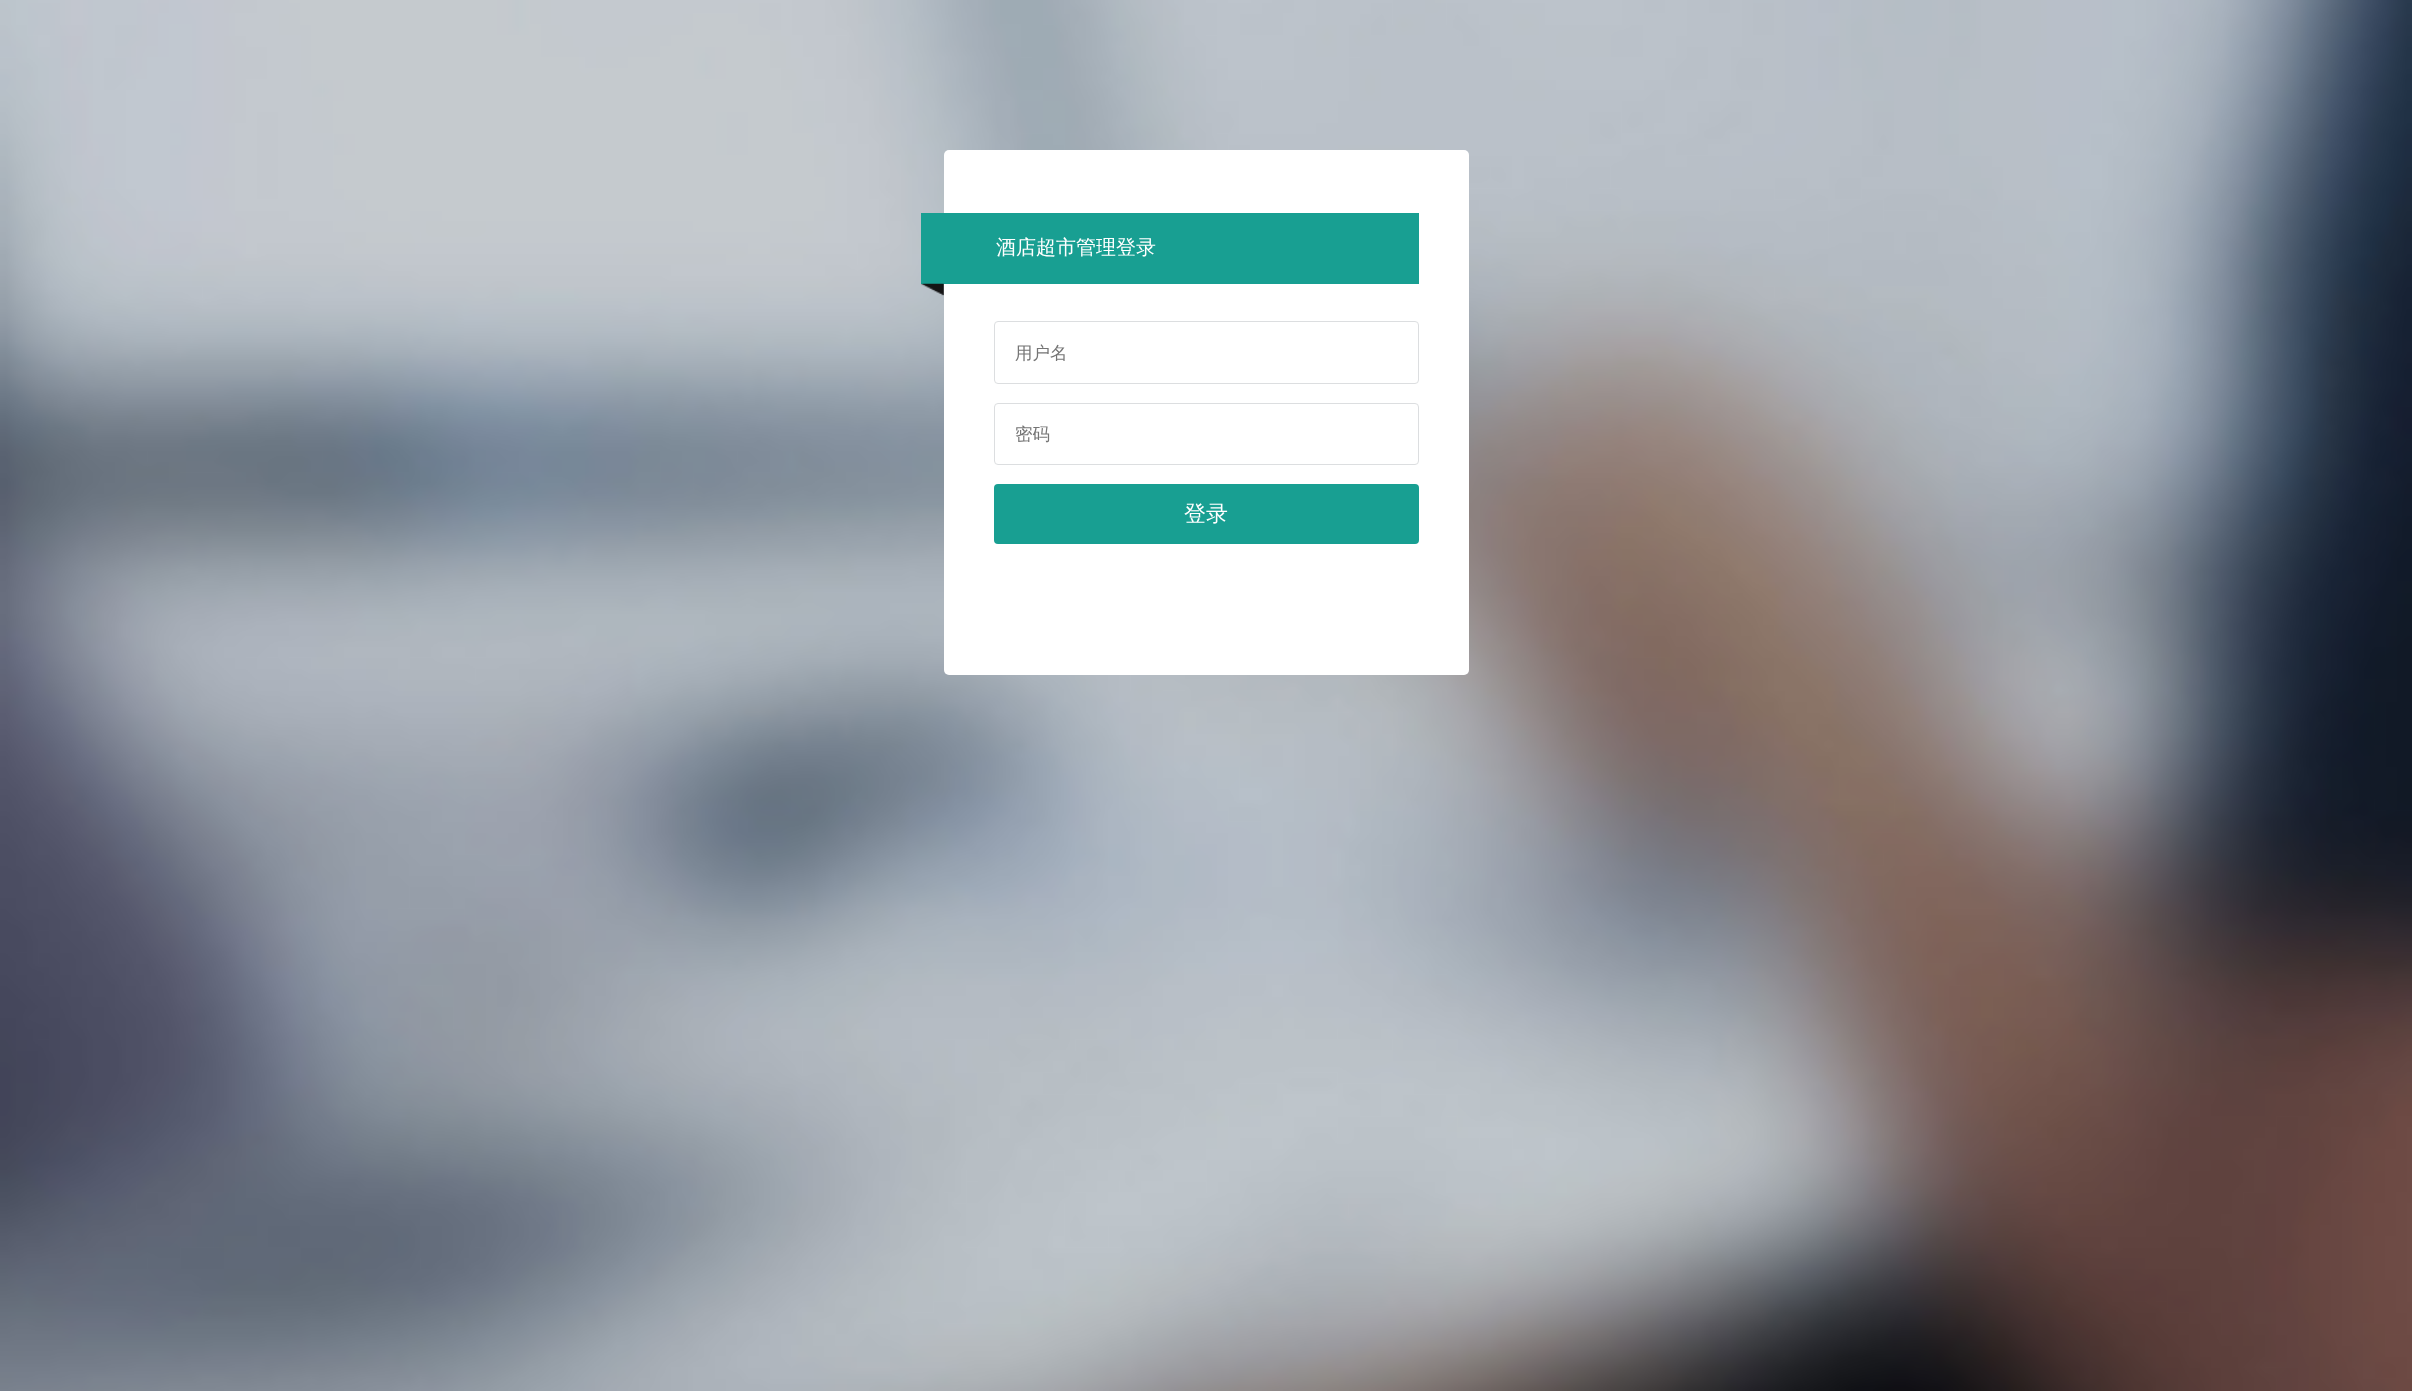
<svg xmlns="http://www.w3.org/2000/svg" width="2412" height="1391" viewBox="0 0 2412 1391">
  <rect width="100%" height="100%" fill="#ffffff"/>
  <image x="0" y="0" width="2412" height="1391" href="img1.png"/>
  <rect x="944" y="150" width="525" height="525" rx="5" fill="#ffffff"/>
  <rect x="921" y="213" width="498" height="71" fill="#189f92"/>
  <text x="996" y="254" font-family="WenQuanYi Zen Hei" font-size="20" font-weight="500" fill="#ffffff">酒店超市管理登录</text>
  <image x="921" y="283" width="23" height="13" href="img2.png"/>
  <rect x="994.5" y="321.5" width="424" height="62" rx="3.5" fill="none" stroke="#dcdee0"/>
  <text x="1015" y="359" font-family="WenQuanYi Zen Hei" font-size="17.5" font-weight="500" fill="#757575">用户名</text>
  <rect x="994.5" y="403.5" width="424" height="61" rx="3.5" fill="none" stroke="#dcdee0"/>
  <text x="1015" y="440" font-family="WenQuanYi Zen Hei" font-size="17.5" font-weight="500" fill="#757575">密码</text>
  <rect x="994" y="484" width="425" height="60" rx="4" fill="#189f92"/>
  <text x="1184" y="521" font-family="WenQuanYi Zen Hei" font-size="22" font-weight="500" fill="#ffffff">登录</text>
</svg>
